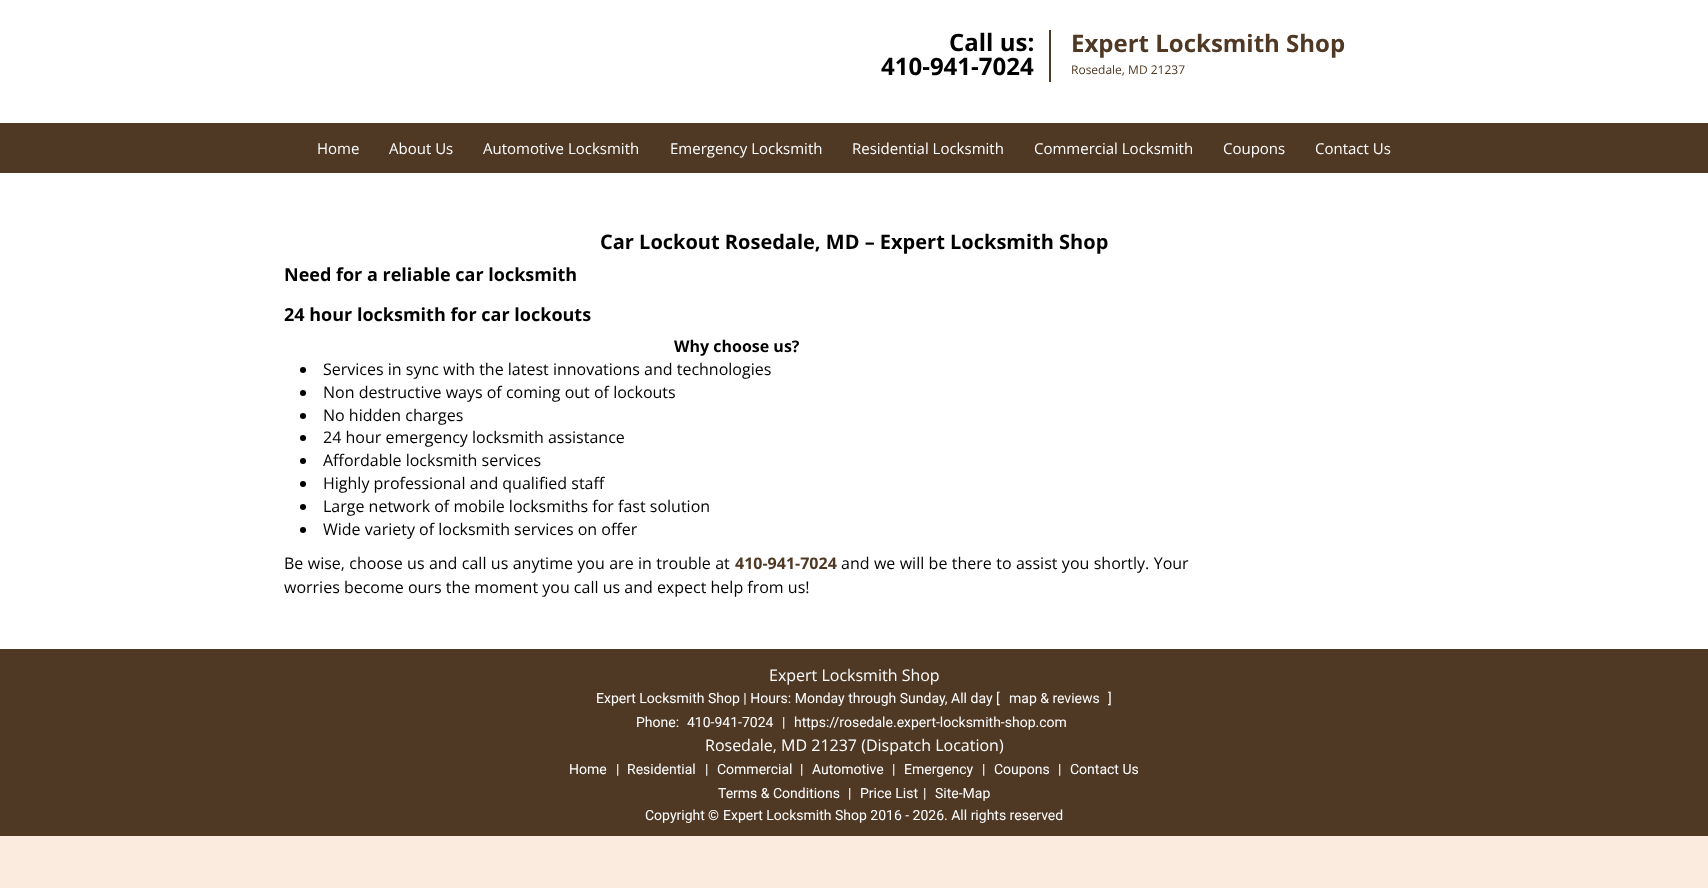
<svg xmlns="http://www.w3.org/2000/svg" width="1708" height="888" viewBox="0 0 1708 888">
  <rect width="100%" height="100%" fill="#faebde"/>
  <rect x="0" y="0" width="1708" height="120" fill="#ffffff"/>
  <text x="949" y="51" font-family="Open Sans" font-size="24" font-weight="bold" fill="#000000">Call us:</text>
  <text x="881" y="75" font-family="Open Sans" font-size="24" font-weight="bold" fill="#000000">410-941-7024</text>
  <rect x="1049" y="30" width="2" height="52" fill="#4f3824"/>
  <text x="1071" y="52" font-family="Open Sans" font-size="24" font-weight="bold" fill="#4f3824">Expert Locksmith Shop</text>
  <text x="1071" y="74" font-family="Open Sans" font-size="12" fill="#4f3824">Rosedale, MD 21237</text>
  <rect x="0" y="123" width="1708" height="50" fill="#4f3824"/>
  <rect x="0" y="120" width="1708" height="3" fill="#fefefe"/>
  <rect x="0" y="173" width="1708" height="3" fill="#fefefe"/>
  <text x="317" y="154" font-family="Open Sans" font-size="15" fill="#ffffff">Home</text>
  <text x="389" y="154" font-family="Open Sans" font-size="15" fill="#ffffff">About Us</text>
  <text x="483" y="154" font-family="Open Sans" font-size="15" fill="#ffffff">Automotive Locksmith</text>
  <text x="670" y="154" font-family="Open Sans" font-size="15" fill="#ffffff">Emergency Locksmith</text>
  <text x="852" y="154" font-family="Open Sans" font-size="15" fill="#ffffff">Residential Locksmith</text>
  <text x="1034" y="154" font-family="Open Sans" font-size="15" fill="#ffffff">Commercial Locksmith</text>
  <text x="1223" y="154" font-family="Open Sans" font-size="15" fill="#ffffff">Coupons</text>
  <text x="1315" y="154" font-family="Open Sans" font-size="15" fill="#ffffff">Contact Us</text>
  <rect x="0" y="176" width="1708" height="473" fill="#ffffff"/>
  <text x="600" y="249" font-family="Open Sans" font-size="20" font-weight="bold" fill="#000000">Car Lockout Rosedale, MD – Expert Locksmith Shop</text>
  <text x="284" y="281" font-family="Open Sans" font-size="18" font-weight="bold" fill="#000000">Need for a reliable car locksmith</text>
  <text x="284" y="321" font-family="Open Sans" font-size="18" font-weight="bold" fill="#000000">24 hour locksmith for car lockouts</text>
  <text x="674" y="352" font-family="Open Sans" font-size="16" font-weight="bold" fill="#000000">Why choose us?</text>
  <circle cx="303" cy="370" r="3" fill="#000000"/>
  <text x="323" y="375" font-family="Open Sans" font-size="16" fill="#000000">Services in sync with the latest innovations and technologies</text>
  <circle cx="303" cy="393" r="3" fill="#000000"/>
  <text x="323" y="398" font-family="Open Sans" font-size="16" fill="#000000">Non destructive ways of coming out of lockouts</text>
  <circle cx="303" cy="416" r="3" fill="#000000"/>
  <text x="323" y="421" font-family="Open Sans" font-size="16" fill="#000000">No hidden charges</text>
  <circle cx="303" cy="438" r="3" fill="#000000"/>
  <text x="323" y="443" font-family="Open Sans" font-size="16" fill="#000000">24 hour emergency locksmith assistance</text>
  <circle cx="303" cy="461" r="3" fill="#000000"/>
  <text x="323" y="466" font-family="Open Sans" font-size="16" fill="#000000">Affordable locksmith services</text>
  <circle cx="303" cy="484" r="3" fill="#000000"/>
  <text x="323" y="489" font-family="Open Sans" font-size="16" fill="#000000">Highly professional and qualified staff</text>
  <circle cx="303" cy="507" r="3" fill="#000000"/>
  <text x="323" y="512" font-family="Open Sans" font-size="16" fill="#000000">Large network of mobile locksmiths for fast solution</text>
  <circle cx="303" cy="530" r="3" fill="#000000"/>
  <text x="323" y="535" font-family="Open Sans" font-size="16" fill="#000000">Wide variety of locksmith services on offer</text>
  <text x="284" y="569" word-spacing="0.25" font-family="Open Sans" font-size="16" fill="#000000">Be wise, choose us and call us anytime you are in trouble at</text>
  <text x="735" y="569" font-family="Open Sans" font-size="16" font-weight="bold" fill="#4f3824">410-941-7024</text>
  <text x="841" y="569" word-spacing="0.25" font-family="Open Sans" font-size="16" fill="#000000">and we will be there to assist you shortly. Your</text>
  <text x="284" y="593" font-family="Open Sans" font-size="16" fill="#000000">worries become ours the moment you call us and expect help from us!</text>
  <rect x="0" y="649" width="1708" height="187" fill="#4f3824"/>
  <text x="769" y="681" font-family="Open Sans" font-size="16" fill="#ffffff">Expert Locksmith Shop</text>
  <text x="596" y="703" font-family="Roboto" font-size="14" fill="#ffffff">Expert Locksmith Shop | Hours: Monday through Sunday, All day [</text>
  <text x="1009" y="703" font-family="Roboto" font-size="14" fill="#ffffff">map &amp; reviews</text>
  <text x="1108" y="703" font-family="Roboto" font-size="14" fill="#ffffff">]</text>
  <text x="636" y="727" font-family="Roboto" font-size="14" fill="#ffffff">Phone:</text>
  <text x="687" y="727" font-family="Roboto" font-size="14" fill="#ffffff">410-941-7024</text>
  <text x="782" y="727" font-family="Roboto" font-size="14" fill="#ffffff">|</text>
  <text x="794" y="727" font-family="Roboto" font-size="14" fill="#ffffff">https://rosedale.expert-locksmith-shop.com</text>
  <text x="705" y="751" font-family="Open Sans" font-size="16" fill="#ffffff">Rosedale, MD 21237 (Dispatch Location)</text>
  <text x="569" y="774" font-family="Roboto" font-size="14" fill="#ffffff">Home</text>
  <text x="616" y="774" font-family="Roboto" font-size="14" fill="#ffffff">|</text>
  <text x="627" y="774" font-family="Roboto" font-size="14" fill="#ffffff">Residential</text>
  <text x="705" y="774" font-family="Roboto" font-size="14" fill="#ffffff">|</text>
  <text x="717" y="774" font-family="Roboto" font-size="14" fill="#ffffff">Commercial</text>
  <text x="800" y="774" font-family="Roboto" font-size="14" fill="#ffffff">|</text>
  <text x="812" y="774" font-family="Roboto" font-size="14" fill="#ffffff">Automotive</text>
  <text x="892" y="774" font-family="Roboto" font-size="14" fill="#ffffff">|</text>
  <text x="904" y="774" font-family="Roboto" font-size="14" fill="#ffffff">Emergency</text>
  <text x="982" y="774" font-family="Roboto" font-size="14" fill="#ffffff">|</text>
  <text x="994" y="774" font-family="Roboto" font-size="14" fill="#ffffff">Coupons</text>
  <text x="1058" y="774" font-family="Roboto" font-size="14" fill="#ffffff">|</text>
  <text x="1070" y="774" font-family="Roboto" font-size="14" fill="#ffffff">Contact Us</text>
  <text x="718" y="798" font-family="Roboto" font-size="14" fill="#ffffff">Terms &amp; Conditions</text>
  <text x="848" y="798" font-family="Roboto" font-size="14" fill="#ffffff">|</text>
  <text x="860" y="798" font-family="Roboto" font-size="14" fill="#ffffff">Price List</text>
  <text x="923" y="798" font-family="Roboto" font-size="14" fill="#ffffff">|</text>
  <text x="935" y="798" font-family="Roboto" font-size="14" fill="#ffffff">Site-Map</text>
  <text x="645" y="820" font-family="Roboto" font-size="14" fill="#ffffff">Copyright</text>
  <text x="708" y="820" font-family="Roboto" font-size="14" font-weight="bold" fill="#ffffff">©</text>
  <text x="723" y="820" font-family="Roboto" font-size="14" fill="#ffffff">Expert Locksmith Shop 2016 - 2026. All rights reserved</text>
</svg>
